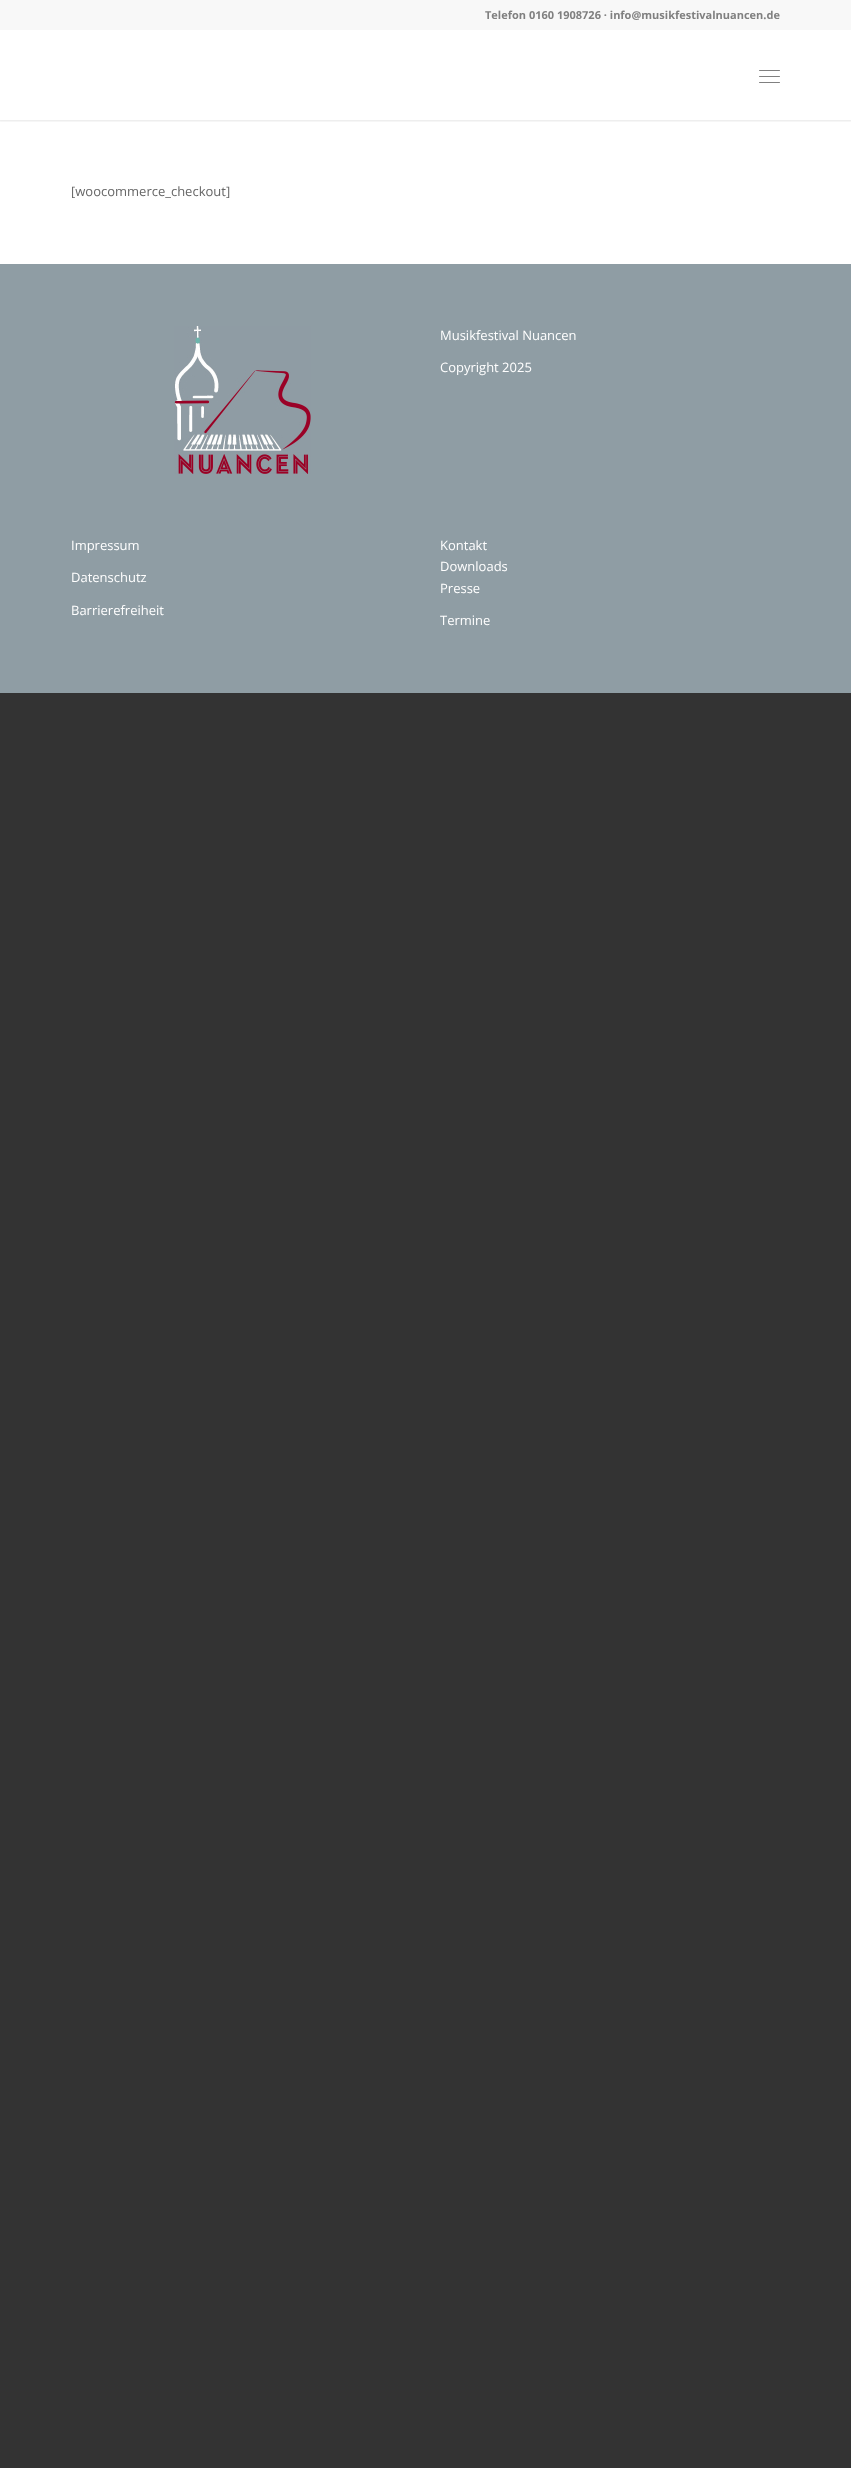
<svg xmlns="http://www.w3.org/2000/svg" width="851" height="2468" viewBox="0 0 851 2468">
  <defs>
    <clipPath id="clip1"><rect x="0" y="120" width="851" height="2"/></clipPath>
    <filter id="blur1" x="-50%" y="-200%" width="200%" height="500%"><feGaussianBlur stdDeviation="1"/></filter>
  </defs>
  <rect width="100%" height="100%" fill="#333333"/>
  <rect x="0" y="30" width="851" height="234" fill="#ffffff"/>
  <g clip-path="url(#clip1)">
    <rect x="-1" y="-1" width="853" height="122" fill="#000000" fill-opacity="0.1" filter="url(#blur1)"/>
  </g>
  <rect x="0" y="0" width="851" height="30" fill="#f8f8f8"/>
  <text x="485" y="19" font-family="Open Sans" font-size="11" font-weight="bold" fill="#808080">Telefon 0160 1908726 · info@musikfestivalnuancen.de</text>
  <rect x="759" y="76" width="21" height="1" rx="0.5" fill="#808080"/>
  <rect x="759" y="70" width="21" height="1" rx="0.5" fill="#808080"/>
  <rect x="759" y="82" width="21" height="1" rx="0.5" fill="#808080"/>
  <text x="71" y="196" font-family="Open Sans" font-size="13" fill="#666666">[woocommerce_checkout]</text>
  <rect x="0" y="264" width="851" height="429" fill="#8f9da4"/>
  <image x="174" y="326" width="137" height="148" href="img1.png"/>
  <text x="440" y="340" font-family="Open Sans" font-size="13" fill="#ffffff">Musikfestival Nuancen</text>
  <text x="440" y="372" font-family="Open Sans" font-size="13" fill="#ffffff">Copyright 2025</text>
  <text x="71" y="550" font-family="Open Sans" font-size="13" fill="#ffffff">Impressum</text>
  <text x="71" y="582" font-family="Open Sans" font-size="13" fill="#ffffff">Datenschutz</text>
  <text x="71" y="615" font-family="Open Sans" font-size="13" fill="#ffffff">Barrierefreiheit</text>
  <text x="440" y="550" font-family="Open Sans" font-size="13" fill="#ffffff">Kontakt</text>
  <text x="440" y="571" font-family="Open Sans" font-size="13" fill="#ffffff">Downloads</text>
  <text x="440" y="593" font-family="Open Sans" font-size="13" fill="#ffffff">Presse</text>
  <text x="440" y="625" font-family="Open Sans" font-size="13" fill="#ffffff">Termine</text>
</svg>
